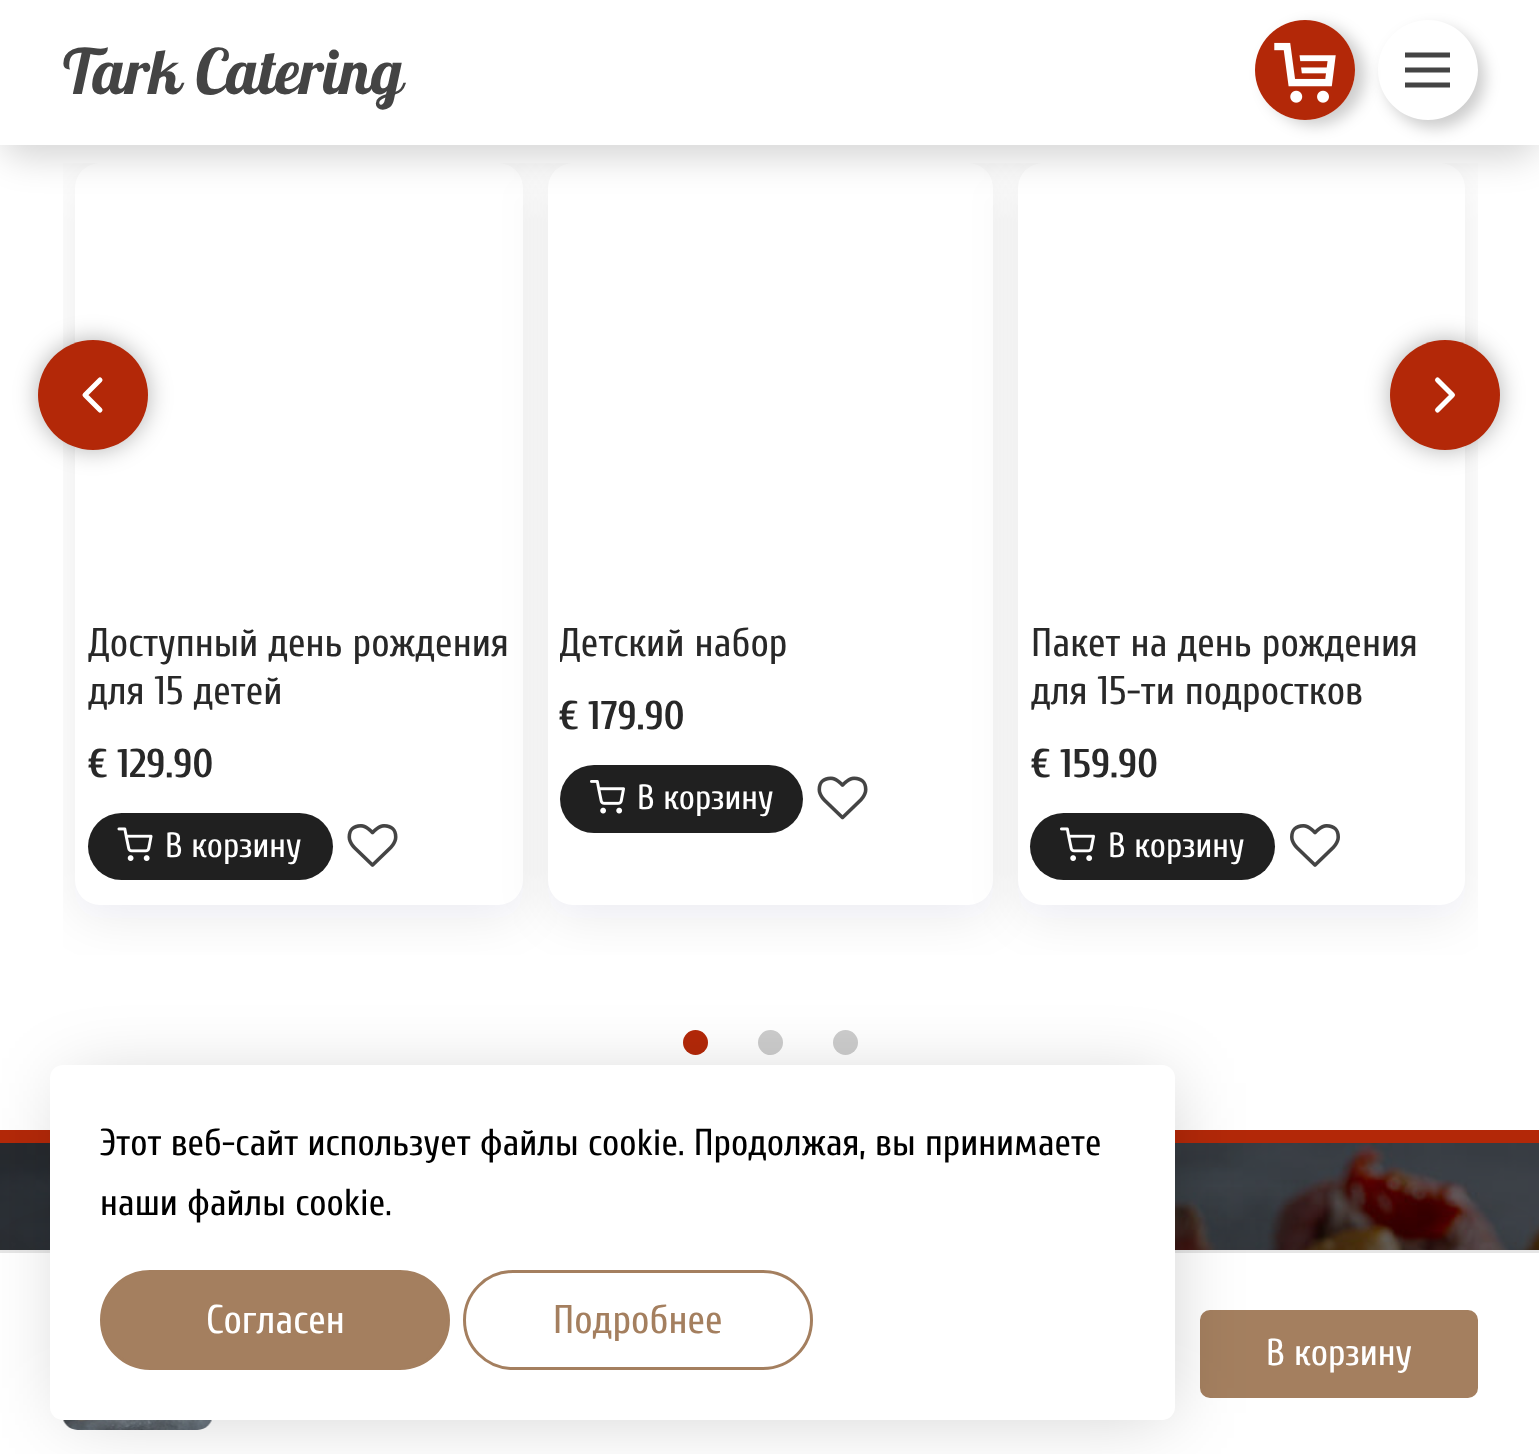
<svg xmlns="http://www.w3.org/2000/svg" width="1539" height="1454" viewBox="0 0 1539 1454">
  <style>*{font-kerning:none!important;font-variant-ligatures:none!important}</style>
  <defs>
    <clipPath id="clip1"><rect x="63" y="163" width="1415" height="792"/></clipPath>
    <filter id="blur1" x="-50%" y="-200%" width="200%" height="500%"><feGaussianBlur stdDeviation="25"/></filter>
    <filter id="blur2" x="-50%" y="-200%" width="200%" height="500%"><feGaussianBlur stdDeviation="17.5"/></filter>
    <clipPath id="clip2"><path d="M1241 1H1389V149H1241ZM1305 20C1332.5 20 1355 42.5 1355 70C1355 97.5 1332.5 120 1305 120C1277.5 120 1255 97.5 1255 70C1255 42.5 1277.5 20 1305 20Z" clip-rule="evenodd"/></clipPath>
    <filter id="blur3" x="-50%" y="-200%" width="200%" height="500%"><feGaussianBlur stdDeviation="7.5"/></filter>
    <clipPath id="clip3"><path d="M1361 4H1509V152H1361ZM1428 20C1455.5 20 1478 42.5 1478 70C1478 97.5 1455.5 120 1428 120C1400.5 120 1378 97.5 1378 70C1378 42.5 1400.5 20 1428 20Z" clip-rule="evenodd"/></clipPath>
    <filter id="blur4" x="-50%" y="-200%" width="200%" height="500%"><feGaussianBlur stdDeviation="12.5"/></filter>
    <clipPath id="clip4"><rect x="88" y="620" width="422" height="98"/></clipPath>
    <clipPath id="clip5"><rect x="560" y="620" width="420" height="50"/></clipPath>
    <filter id="blur5" x="-50%" y="-200%" width="200%" height="500%"><feGaussianBlur stdDeviation="56"/></filter>
    <filter id="blur6" x="-50%" y="-200%" width="200%" height="500%"><feGaussianBlur stdDeviation="37.5"/></filter>
  </defs>
  <rect width="100%" height="100%" fill="#ffffff"/>
  <g clip-path="url(#clip1)">
    <rect x="75" y="175" width="448" height="743" rx="25" fill="#000032" fill-opacity="0.08" filter="url(#blur1)"/>
  </g>
  <rect x="75" y="163" width="448" height="742" rx="25" fill="#ffffff"/>
  <g clip-path="url(#clip1)">
    <rect x="548" y="175" width="445" height="743" rx="25" fill="#000032" fill-opacity="0.08" filter="url(#blur1)"/>
  </g>
  <rect x="548" y="163" width="445" height="742" rx="25" fill="#ffffff"/>
  <g clip-path="url(#clip1)">
    <rect x="1018" y="175" width="447" height="743" rx="25" fill="#000032" fill-opacity="0.08" filter="url(#blur1)"/>
  </g>
  <rect x="1018" y="163" width="447" height="742" rx="25" fill="#ffffff"/>
  <rect x="0" y="-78" width="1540" height="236" rx="25" fill="#000000" fill-opacity="0.16" filter="url(#blur2)"/>
  <rect x="0" y="0" width="1539" height="145" fill="#ffffff"/>
  <text x="63" y="94" font-family="Lobster" font-size="62.5" fill="#444444">Tark Catering</text>
  <g clip-path="url(#clip2)">
    <rect x="1265" y="25" width="100" height="100" rx="50" fill="#000000" fill-opacity="0.2" filter="url(#blur3)"/>
  </g>
  <image x="1255" y="20" width="100" height="100" href="img1.png"/>
  <g clip-path="url(#clip3)">
    <rect x="1385" y="28" width="100" height="100" rx="50" fill="#000000" fill-opacity="0.2" filter="url(#blur3)"/>
  </g>
  <path d="M1405 70H1450M1405 55H1450M1405 85H1450" fill="none" stroke="#444444" stroke-width="5"/>
  <rect x="38" y="340" width="110" height="110" rx="55" fill="#000000" fill-opacity="0.3" filter="url(#blur4)"/>
  <circle cx="93" cy="395" r="55" fill="#b32808"/>
  <path d="M100 410L85 395L100 380" fill="none" stroke="#ffffff" stroke-width="5" stroke-linecap="round" stroke-linejoin="round"/>
  <rect x="1390" y="340" width="110" height="110" rx="55" fill="#000000" fill-opacity="0.3" filter="url(#blur4)"/>
  <circle cx="1445" cy="395" r="55" fill="#b32808"/>
  <path d="M1437.5 410L1452.5 395L1437.5 380" fill="none" stroke="#ffffff" stroke-width="5" stroke-linecap="round" stroke-linejoin="round"/>
  <g clip-path="url(#clip4)">
    <text x="88" y="656" font-family="Cuprum" font-size="40" fill="#282828">Доступный день рождения</text>
    <text x="88" y="704" font-family="Cuprum" font-size="40" fill="#282828">для 15 детей</text>
  </g>
  <text x="88" y="777" font-family="Cuprum" font-size="40" font-weight="bold" fill="#282828">€ 129.90</text>
  <rect x="88" y="813" width="245" height="67" rx="33.5" fill="#202020"/>
  <image x="117" y="827" width="36" height="34" href="img2.png"/>
  <text x="165" y="857" font-family="Cuprum" font-size="35" fill="#ffffff">В корзину</text>
  <image x="347" y="824" width="51" height="43" href="img3.png"/>
  <g clip-path="url(#clip5)">
    <text x="559" y="656" font-family="Cuprum" font-size="40" fill="#282828">Детский набор</text>
  </g>
  <text x="559" y="729" font-family="Cuprum" font-size="40" font-weight="bold" fill="#282828">€ 179.90</text>
  <rect x="560" y="765" width="243" height="68" rx="34" fill="#202020"/>
  <image x="590" y="780" width="35" height="34" href="img4.png"/>
  <text x="637" y="809" font-family="Cuprum" font-size="35" fill="#ffffff">В корзину</text>
  <image x="817" y="776" width="51" height="44" href="img5.png"/>
  <text x="1031" y="656" font-family="Cuprum" font-size="40" fill="#282828">Пакет на день рождения</text>
  <text x="1031" y="704" font-family="Cuprum" font-size="40" fill="#282828">для 15-ти подростков</text>
  <text x="1031" y="777" font-family="Cuprum" font-size="40" font-weight="bold" fill="#282828">€ 159.90</text>
  <rect x="1030" y="813" width="245" height="67" rx="33.5" fill="#202020"/>
  <image x="1060" y="827" width="35" height="34" href="img6.png"/>
  <text x="1108" y="857" font-family="Cuprum" font-size="35" fill="#ffffff">В корзину</text>
  <image x="1290" y="824" width="50" height="43" href="img7.png"/>
  <circle cx="695.5" cy="1042.5" r="12.5" fill="#b32808"/>
  <circle cx="770.5" cy="1042.5" r="12.5" fill="#cccccc"/>
  <circle cx="845.5" cy="1042.5" r="12.5" fill="#cccccc"/>
  <image x="0" y="1143" width="1539" height="107" href="img9.png"/>
  <rect x="0" y="1130" width="1539" height="13" fill="#b32808"/>
  <rect x="33" y="1293" width="1465" height="130" fill="#000000" fill-opacity="0.3" filter="url(#blur5)"/>
  <rect x="0" y="1253" width="1539" height="201" fill="#ffffff"/>
  <rect x="0" y="1250" width="1539" height="3" fill="#e6e6e6"/>
  <rect x="1201.5" y="1311.5" width="275" height="85" rx="8.5" fill="#a47f5f" stroke="#a47f5f" stroke-width="3"/>
  <text x="1266" y="1365" font-family="Cuprum" font-size="37.5" fill="#ffffff">В корзину</text>
  <image x="62" y="1419" width="150" height="11" href="img8.png"/>
  <rect x="68" y="1083" width="1100" height="330" fill="#000000" fill-opacity="0.2" filter="url(#blur6)"/>
  <rect x="50" y="1065" width="1125" height="355" rx="13" fill="#ffffff"/>
  <text x="100" y="1155" font-family="Cuprum" font-size="37.5" fill="#000000">Этот веб-сайт использует файлы cookie. Продолжая, вы принимаете</text>
  <text x="100" y="1215" font-family="Cuprum" font-size="37.5" fill="#000000">наши файлы cookie.</text>
  <rect x="101.5" y="1271.5" width="347" height="97" rx="48.5" fill="#a47f5f" stroke="#a47f5f" stroke-width="3"/>
  <text x="206" y="1333" font-family="Cuprum" font-size="40" fill="#ffffff">Согласен</text>
  <rect x="464.5" y="1271.5" width="347" height="97" rx="48.5" fill="none" stroke="#a47f5f" stroke-width="3"/>
  <text x="553" y="1333" font-family="Cuprum" font-size="40" fill="#a47f5f">Подробнее</text>
</svg>
